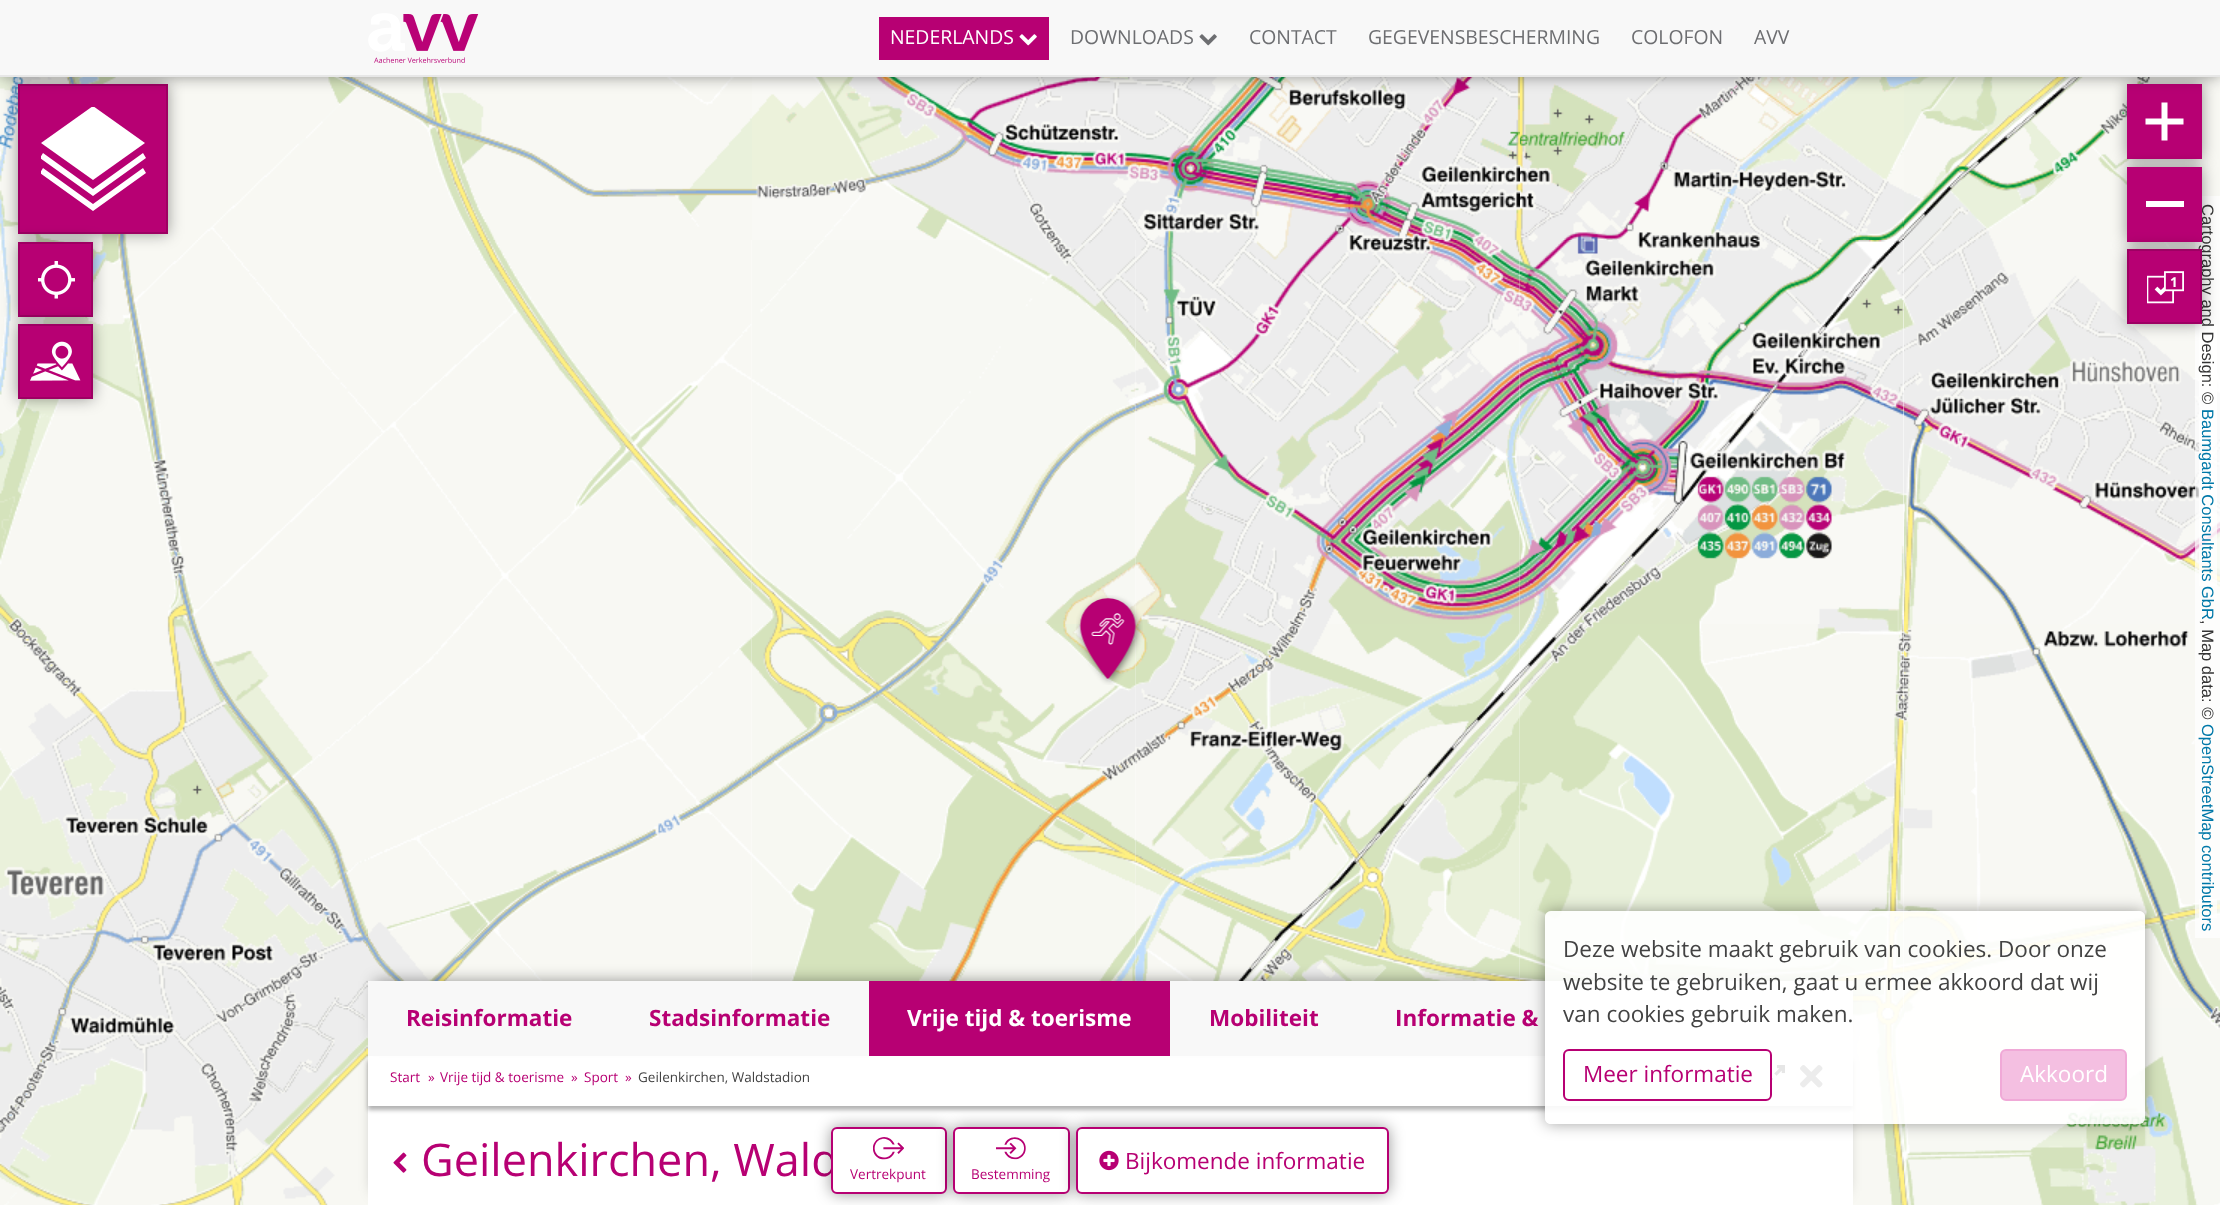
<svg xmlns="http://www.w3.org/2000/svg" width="2220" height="1205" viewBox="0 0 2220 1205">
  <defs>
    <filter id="blur1" x="-50%" y="-200%" width="200%" height="500%"><feGaussianBlur stdDeviation="7.5"/></filter>
    <clipPath id="clip1"><rect x="41" y="107" width="105" height="105"/></clipPath>
    <filter id="blur2" x="-50%" y="-200%" width="200%" height="500%"><feGaussianBlur stdDeviation="2"/></filter>
    <clipPath id="clip2"><path d="M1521 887H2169V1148H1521ZM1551 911H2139C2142.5 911 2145 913.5 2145 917V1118C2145 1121.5 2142.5 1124 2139 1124H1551C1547.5 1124 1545 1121.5 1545 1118V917C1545 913.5 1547.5 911 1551 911Z" clip-rule="evenodd"/></clipPath>
  </defs>
  <rect width="100%" height="100%" fill="#ffffff"/>
  <image x="0" y="77" width="368" height="163" href="img7.png"/>
  <image x="751" y="240" width="385" height="384" href="img15.png"/>
  <image x="367" y="240" width="385" height="384" href="img14.png"/>
  <image x="0" y="240" width="368" height="384" href="img13.png"/>
  <rect x="18" y="84" width="150" height="150" fill="#000000" fill-opacity="0.4" filter="url(#blur1)"/>
  <rect x="19" y="85" width="148" height="148" fill="#b70073" stroke="#9e0063" stroke-width="2"/>
  <image x="1904" y="77" width="316" height="163" href="img12.png"/>
  <rect x="2127" y="84" width="75" height="75" fill="#000000" fill-opacity="0.4" filter="url(#blur1)"/>
  <rect x="2127" y="84" width="75" height="75" fill="#b70073"/>
  <image x="368" y="77" width="384" height="163" href="img8.png"/>
  <image x="752" y="77" width="384" height="163" href="img9.png"/>
  <image x="1136" y="77" width="384" height="163" href="img10.png"/>
  <image x="1520" y="77" width="384" height="163" href="img11.png"/>
  <rect x="0" y="0" width="2220" height="77" fill="#000000" fill-opacity="0.4" filter="url(#blur1)"/>
  <rect x="0" y="0" width="2220" height="75" fill="#f8f8f8"/>
  <rect x="0" y="75" width="2220" height="2" fill="#e7e7e7"/>
  <image x="368" y="13" width="111" height="50" href="img1.png"/>
  <rect x="879" y="17" width="170" height="43" fill="#b70073"/>
  <text x="890" y="44" font-family="Open Sans" font-size="19.4" fill="#ffffff">NEDERLANDS</text>
  <image x="1019" y="34" width="18" height="12" href="img2.png"/>
  <text x="1070" y="44" font-family="Open Sans" font-size="19.4" fill="#6d6e71">DOWNLOADS</text>
  <image x="1199" y="34" width="18" height="12" href="img3.png"/>
  <text x="1249" y="44" font-family="Open Sans" font-size="19.4" fill="#6d6e71">CONTACT</text>
  <text x="1368" y="44" font-family="Open Sans" font-size="19.4" fill="#6d6e71">GEGEVENSBESCHERMING</text>
  <text x="1631" y="44" font-family="Open Sans" font-size="19.4" fill="#6d6e71">COLOFON</text>
  <text x="1754" y="44" font-family="Open Sans" font-size="19.4" fill="#6d6e71">AVV</text>
  <g clip-path="url(#clip1)">
    <path d="M93 180L41 143L93 106L145 143Z" fill="#ffffff"/>
    <path d="M93 211L40 173L43 168L93 204L143 168L146 173Z" fill="#ffffff"/>
    <path d="M93 196L40 158L43 153L93 189L143 153L146 158Z" fill="#ffffff"/>
  </g>
  <rect x="18" y="242" width="75" height="75" fill="#000000" fill-opacity="0.4" filter="url(#blur1)"/>
  <rect x="20" y="244" width="71" height="71" fill="#b70073"/>
  <image x="38" y="261" width="37" height="38" href="img4.png"/>
  <rect x="19" y="243" width="73" height="73" fill="none" stroke="#9e0063" stroke-width="2"/>
  <rect x="18" y="324" width="75" height="75" fill="#000000" fill-opacity="0.4" filter="url(#blur1)"/>
  <rect x="19" y="325" width="73" height="73" fill="#b70073" stroke="#9e0063" stroke-width="2"/>
  <image x="30" y="341" width="51" height="40" href="img5.png"/>
  <path d="M2183.5 118.5H2167.5V102.5H2161.5V118.5H2145.5V124.5H2161.5V140.5H2167.5V124.5H2183.5Z" fill="#ffffff"/>
  <image x="1904" y="240" width="316" height="384" href="img18.png"/>
  <image x="1904" y="624" width="316" height="384" href="img24.png"/>
  <rect x="2195" y="196" width="25" height="742" fill="#ffffff" fill-opacity="0.7"/>
  <rect x="2127" y="167" width="75" height="75" fill="#000000" fill-opacity="0.4" filter="url(#blur1)"/>
  <rect x="2199" y="325" width="18" height="84" fill="#ffffff" fill-opacity="0.7"/>
  <text x="2202" y="204" transform="rotate(90 2202 204)" font-family="Liberation Sans" font-size="16.5" fill="#333333">Cartography and Design: ©</text>
  <rect x="2127" y="167" width="75" height="75" fill="#b70073"/>
  <rect x="2146" y="201" width="38" height="6" fill="#ffffff"/>
  <rect x="2127" y="249" width="75" height="75" fill="#000000" fill-opacity="0.4" filter="url(#blur1)"/>
  <rect x="2129" y="251" width="71" height="71" fill="#b70073"/>
  <image x="2147" y="271" width="37" height="33" href="img6.png"/>
  <rect x="2128" y="250" width="73" height="73" fill="none" stroke="#9e0063" stroke-width="2"/>
  <text x="2170" y="287" font-family="Open Sans" font-size="13.5" font-weight="bold" fill="#ffffff">1</text>
  <image x="1135" y="240" width="385" height="384" href="img16.png"/>
  <image x="1519" y="240" width="385" height="384" href="img17.png"/>
  <image x="751" y="624" width="385" height="357" href="img21.png"/>
  <image x="367" y="624" width="385" height="357" href="img20.png"/>
  <image x="0" y="624" width="368" height="384" href="img19.png"/>
  <image x="1135" y="624" width="385" height="357" href="img22.png"/>
  <image x="1519" y="624" width="385" height="384" href="img23.png"/>
  <image x="0" y="1008" width="368" height="197" href="img25.png"/>
  <image x="1853" y="1008" width="51" height="197" href="img26.png"/>
  <image x="1904" y="1008" width="316" height="197" href="img27.png"/>
  <image x="1076" y="595" width="67" height="90" href="img28.png"/>
  <rect x="2199" y="409" width="18" height="177" fill="#ffffff" fill-opacity="0.7"/>
  <text x="2202" y="409" transform="rotate(90 2202 409)" font-family="Liberation Sans" font-size="16.5" fill="#0078a8">Baumgardt Consultants GbR</text>
  <text x="2202" y="620" transform="rotate(90 2202 620)" font-family="Liberation Sans" font-size="16.5" fill="#333333">, Map data: ©</text>
  <rect x="2199" y="899" width="18" height="19" fill="#ffffff" fill-opacity="0.7"/>
  <text x="2202" y="724" transform="rotate(90 2202 724)" font-family="Liberation Sans" font-size="16.5" fill="#0078a8">OpenStreetMap contributors</text>
  <rect x="375" y="1056" width="1470" height="135" fill="#000000" fill-opacity="0.4" filter="url(#blur1)"/>
  <rect x="368" y="1106" width="1485" height="99" fill="#ffffff"/>
  <rect x="368" y="1061" width="1485" height="49" fill="#000000" fill-opacity="0.3" filter="url(#blur2)"/>
  <rect x="368" y="1056" width="1485" height="50" fill="#ffffff"/>
  <rect x="375" y="981" width="1470" height="60" fill="#000000" fill-opacity="0.4" filter="url(#blur1)"/>
  <rect x="368" y="981" width="501" height="75" fill="#f8f8f8"/>
  <text x="406" y="1026" font-family="Open Sans" font-size="22.5" font-weight="bold" fill="#b70073">Reisinformatie</text>
  <text x="649" y="1026" font-family="Open Sans" font-size="22.5" font-weight="bold" fill="#b70073">Stadsinformatie</text>
  <rect x="869" y="981" width="301" height="75" fill="#b70073"/>
  <text x="907" y="1026" font-family="Open Sans" font-size="22.5" font-weight="bold" fill="#ffffff">Vrije tijd &amp; toerisme</text>
  <rect x="1170" y="981" width="683" height="75" fill="#f8f8f8"/>
  <text x="1209" y="1026" font-family="Open Sans" font-size="22.5" font-weight="bold" fill="#b70073">Mobiliteit</text>
  <text x="1395" y="1026" font-family="Open Sans" font-size="22.5" font-weight="bold" fill="#b70073">Informatie &amp;</text>
  <text x="390" y="1082" font-family="Open Sans" font-size="13.5" fill="#b70073">Start</text>
  <text x="428" y="1082" font-family="Open Sans" font-size="13.5" fill="#b70073">»</text>
  <text x="440" y="1082" font-family="Open Sans" font-size="13.5" fill="#b70073">Vrije tijd &amp; toerisme</text>
  <text x="571" y="1082" font-family="Open Sans" font-size="13.5" fill="#b70073">»</text>
  <text x="584" y="1082" font-family="Open Sans" font-size="13.5" fill="#b70073">Sport</text>
  <text x="625" y="1082" font-family="Open Sans" font-size="13.5" fill="#b70073">»</text>
  <text x="638" y="1082" font-family="Open Sans" font-size="13.5" fill="#434343">Geilenkirchen, Waldstadion</text>
  <image x="393" y="1152" width="14" height="21" href="img29.png"/>
  <text x="421" y="1176" font-family="Open Sans" font-size="45" fill="#b70073">Geilenkirchen, Wald</text>
  <rect x="831" y="1127" width="116" height="67" rx="6" fill="#000000" fill-opacity="0.4" filter="url(#blur1)"/>
  <rect x="832" y="1128" width="114" height="65" rx="5" fill="#ffffff" stroke="#b70073" stroke-width="2"/>
  <image x="873" y="1137" width="31" height="23" href="img30.png"/>
  <text x="850" y="1179" font-family="Open Sans" font-size="13.5" fill="#b70073">Vertrekpunt</text>
  <rect x="953" y="1127" width="117" height="67" rx="6" fill="#000000" fill-opacity="0.4" filter="url(#blur1)"/>
  <rect x="954" y="1128" width="115" height="65" rx="5" fill="#ffffff" stroke="#b70073" stroke-width="2"/>
  <image x="996" y="1137" width="30" height="23" href="img31.png"/>
  <text x="971" y="1179" font-family="Open Sans" font-size="13.5" fill="#b70073">Bestemming</text>
  <rect x="1076" y="1127" width="313" height="67" rx="6" fill="#000000" fill-opacity="0.4" filter="url(#blur1)"/>
  <rect x="1077" y="1128" width="311" height="65" rx="5" fill="#ffffff" stroke="#b70073" stroke-width="2"/>
  <image x="1099" y="1150" width="20" height="21" href="img32.png"/>
  <text x="1125" y="1169" font-family="Open Sans" font-size="22.5" fill="#b70073">Bijkomende informatie</text>
  <image x="1772" y="1065" width="13" height="16" href="img33.png"/>
  <image x="1800" y="1065" width="23" height="23" href="img34.png"/>
  <g clip-path="url(#clip2)">
    <rect x="1545" y="911" width="600" height="213" rx="6" fill="#000000" fill-opacity="0.36" filter="url(#blur1)"/>
  </g>
  <rect x="1545" y="911" width="600" height="213" rx="6" fill="#ffffff" fill-opacity="0.9"/>
  <text x="1563" y="957" font-family="Open Sans" font-size="22.5" fill="#434343">Deze website maakt gebruik van cookies. Door onze</text>
  <text x="1563" y="990" font-family="Open Sans" font-size="22.5" fill="#434343">website te gebruiken, gaat u ermee akkoord dat wij</text>
  <text x="1563" y="1022" font-family="Open Sans" font-size="22.5" fill="#434343">van cookies gebruik maken.</text>
  <rect x="1564" y="1050" width="207" height="50" rx="5" fill="none" stroke="#b70073" stroke-width="2"/>
  <text x="1583" y="1082" font-family="Open Sans" font-size="22.5" fill="#b70073">Meer informatie</text>
  <rect x="2001" y="1050" width="125" height="50" rx="5" fill="#f4bfe1" stroke="#f0a9d7" stroke-width="2"/>
  <text x="2020" y="1082" font-family="Open Sans" font-size="22.5" fill="#ffffff">Akkoord</text>
</svg>
